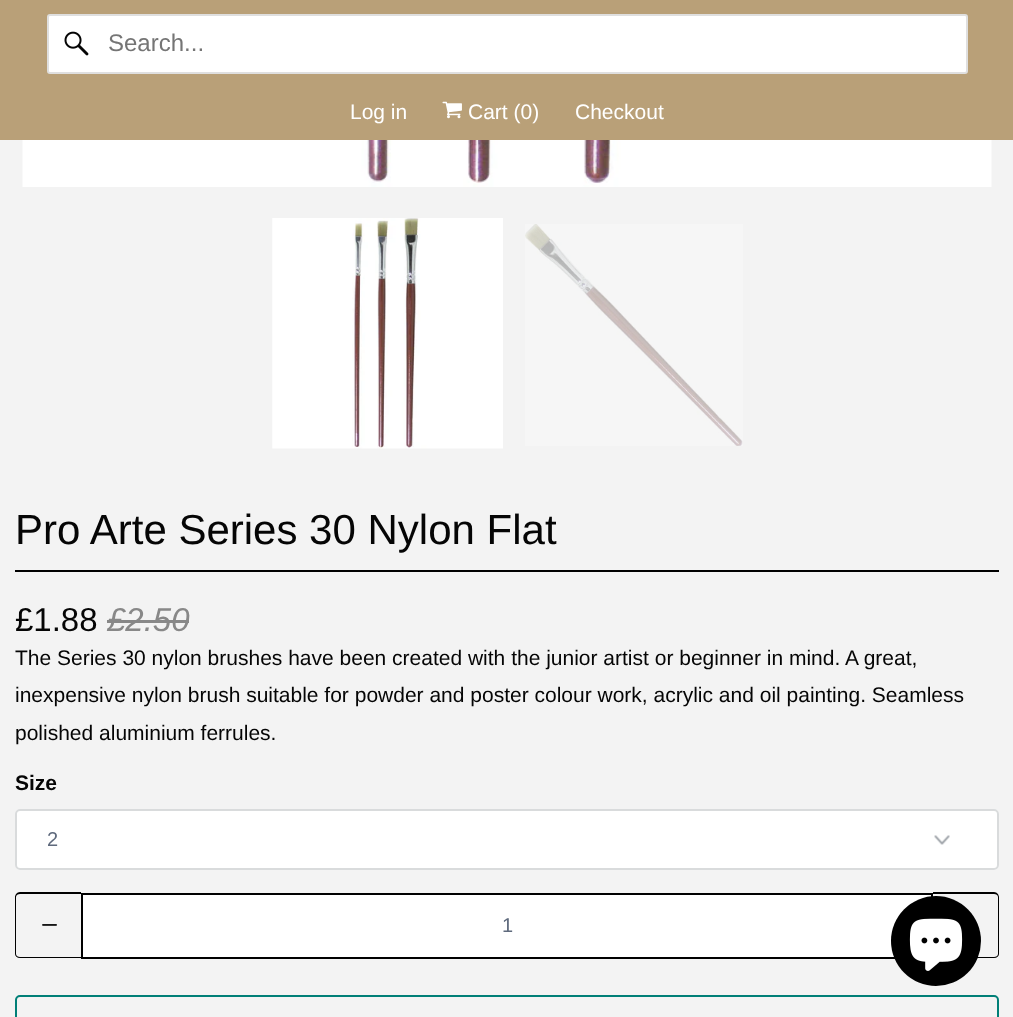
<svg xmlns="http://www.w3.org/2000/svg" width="1013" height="1017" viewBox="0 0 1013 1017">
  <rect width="100%" height="100%" fill="#f3f3f3"/>
  <rect x="0" y="0" width="1013" height="140" fill="#b9a078"/>
  <rect x="48" y="15" width="919" height="58" rx="2" fill="#ffffff" stroke="#dfdfdf" stroke-width="2"/>
  <image x="64" y="31" width="25" height="25" href="img1.png"/>
  <text x="108" y="51" font-family="Arimo" font-size="24" fill="#757575">Search...</text>
  <text x="350" y="119" font-family="Arimo" font-size="21" fill="#ffffff">Log in</text>
  <image x="442" y="101" width="20" height="18" href="img2.png"/>
  <text x="468" y="119" font-family="Arimo" font-size="21" fill="#ffffff">Cart (0)</text>
  <text x="575" y="119" font-family="Arimo" font-size="21" fill="#ffffff">Checkout</text>
  <image x="22" y="140" width="970" height="47" href="img3.png"/>
  <image x="272" y="218" width="231" height="231" href="img4.png"/>
  <image x="525" y="224" width="218" height="222" href="img5.png"/>
  <rect x="15" y="570" width="984" height="2" fill="#000000"/>
  <text x="15" y="544" font-family="Arimo" font-size="42" fill="#050505">Pro Arte Series 30 Nylon Flat</text>
  <text x="15" y="631" font-family="Arimo" font-size="33" fill="#050505">£1.88</text>
  <text x="107" y="631" font-family="Arimo" font-size="33" font-style="italic" fill="#888888">£2.50</text>
  <rect x="107" y="620" width="82" height="3" fill="#888888"/>
  <text x="15" y="665" font-family="Arimo" font-size="21" fill="#050505">The Series 30 nylon brushes have been created with the junior artist or beginner in mind. A great,</text>
  <text x="15" y="702" font-family="Arimo" font-size="21" fill="#050505">inexpensive nylon brush suitable for powder and poster colour work, acrylic and oil painting. Seamless</text>
  <text x="15" y="740" font-family="Arimo" font-size="21" fill="#050505">polished aluminium ferrules.</text>
  <text x="15" y="790" font-family="Arimo" font-size="21" font-weight="bold" fill="#050505">Size</text>
  <rect x="15" y="809" width="984" height="61" rx="5" fill="#ffffff"/>
  <image x="934" y="835" width="16" height="10" href="img6.png"/>
  <rect x="16" y="810" width="982" height="59" rx="4" fill="none" stroke="#d9dbdc" stroke-width="2"/>
  <text x="47" y="846" font-family="Liberation Sans" font-size="20" fill="#5f6a7d">2</text>
  <path d="M20 892H81V958H20C17 958 15 956 15 954V897C15 895 17 892 20 892ZM20 894H81V957H20C18 957 16 956 16 954V897C16 895 18 894 20 894Z" fill="#000000" fill-rule="evenodd"/>
  <image x="42" y="924" width="15" height="2" href="img7.png"/>
  <rect x="82" y="894" width="850" height="64" fill="#ffffff" stroke="#000000" stroke-width="2"/>
  <text x="502" y="932" font-family="Liberation Sans" font-size="20" fill="#5f6a7d">1</text>
  <path d="M933 892H994C997 892 999 895 999 897V954C999 956 997 958 994 958H933ZM933 894H994C996 894 998 895 998 897V954C998 956 996 957 994 957H933Z" fill="#000000" fill-rule="evenodd"/>
  <rect x="16" y="996" width="982" height="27" rx="4" fill="none" stroke="#007f77" stroke-width="2"/>
  <circle cx="936" cy="941" r="45" fill="#000000"/>
  <image x="909" y="918" width="54" height="53" href="img8.png"/>
</svg>
